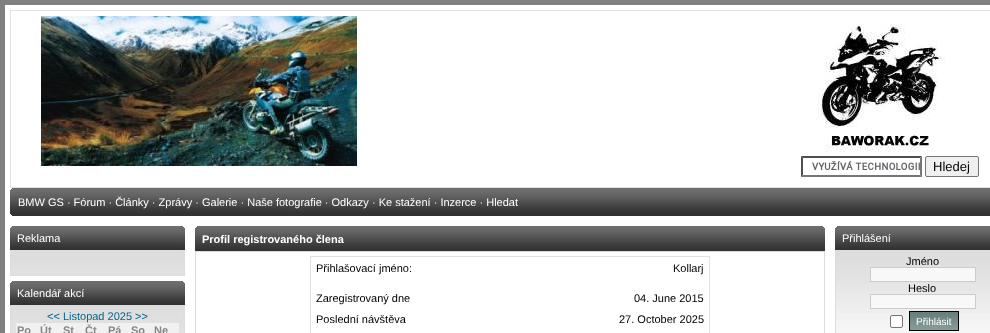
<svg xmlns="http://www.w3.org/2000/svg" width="990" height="333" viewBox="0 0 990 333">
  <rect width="100%" height="100%" fill="#808080"/>
  <rect x="5" y="5" width="985" height="328" fill="#ffffff"/>
  <rect x="10.5" y="10.5" width="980" height="177" fill="none" stroke="#e1e1e1"/>
  <image x="41" y="16" width="316" height="150" href="img1.png"/>
  <image x="817" y="24" width="128" height="128" href="img2.png"/>
  <image x="812" y="161" width="108" height="9" href="img3.png"/>
  <path d="M801 156H922L920 158H803Z" fill="#4f4f4f"/>
  <path d="M922 156V177L920 175V158Z" fill="#767676"/>
  <path d="M922 177H801L803 175H920Z" fill="#767676"/>
  <path d="M801 177V156L803 158V175Z" fill="#4f4f4f"/>
  <rect x="925.5" y="156.5" width="53" height="20" rx="1.5" fill="#efefef" stroke="#767676"/>
  <text x="933" y="171" font-family="Liberation Sans" font-size="13" fill="#000000">Hledej</text>
  <image x="10" y="188" width="3" height="28" href="img4.png"/>
  <image x="13" y="188" width="977" height="28" href="img5.png"/>
  <text x="18" y="206" font-family="Liberation Sans" font-size="11" fill="#ffffff">BMW GS · Fórum · Články · Zprávy · Galerie · Naše fotografie · Odkazy · Ke stažení · Inzerce · Hledat</text>
  <image x="10" y="226" width="3" height="24" href="img6.png"/>
  <image x="13" y="226" width="169" height="24" href="img7.png"/>
  <text x="17" y="242" font-family="Liberation Sans" font-size="11" fill="#ffffff">Reklama</text>
  <image x="182" y="226" width="3" height="24" href="img8.png"/>
  <image x="11" y="251" width="173" height="24" href="img9.png"/>
  <rect x="10.5" y="250.5" width="174" height="25" fill="none" stroke="#dddddd"/>
  <image x="10" y="281" width="3" height="24" href="img6.png"/>
  <image x="13" y="281" width="169" height="24" href="img7.png"/>
  <text x="17" y="297" font-family="Liberation Sans" font-size="11" fill="#ffffff">Kalendář akcí</text>
  <image x="182" y="281" width="3" height="24" href="img8.png"/>
  <image x="11" y="306" width="173" height="27" href="img10.png"/>
  <rect x="10.5" y="305.5" width="174" height="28" fill="none" stroke="#dddddd"/>
  <rect x="15.5" y="310.5" width="164" height="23" fill="none" stroke="#e1e1e1"/>
  <text x="47" y="320" font-family="Liberation Sans" font-size="11" fill="#04688d">&lt;&lt; Listopad 2025 &gt;&gt;</text>
  <rect x="16" y="323" width="163" height="10" fill="#f1f1f1"/>
  <text x="17" y="334" font-family="Liberation Sans" font-size="11" font-weight="bold" fill="#888888">Po</text>
  <text x="40" y="334" font-family="Liberation Sans" font-size="11" font-weight="bold" fill="#888888">Út</text>
  <text x="63" y="334" font-family="Liberation Sans" font-size="11" font-weight="bold" fill="#888888">St</text>
  <text x="85" y="334" font-family="Liberation Sans" font-size="11" font-weight="bold" fill="#888888">Čt</text>
  <text x="108" y="334" font-family="Liberation Sans" font-size="11" font-weight="bold" fill="#888888">Pá</text>
  <text x="131" y="334" font-family="Liberation Sans" font-size="11" font-weight="bold" fill="#888888">So</text>
  <text x="154" y="334" font-family="Liberation Sans" font-size="11" font-weight="bold" fill="#888888">Ne</text>
  <image x="195" y="226" width="3" height="25" href="img11.png"/>
  <image x="198" y="226" width="624" height="25" href="img12.png"/>
  <text x="202" y="243" font-family="Liberation Sans" font-size="11" font-weight="bold" fill="#ffffff">Profil registrovaného člena</text>
  <image x="822" y="226" width="3" height="25" href="img13.png"/>
  <rect x="195.5" y="251.5" width="629" height="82" fill="none" stroke="#dddddd"/>
  <rect x="310.5" y="256.5" width="399" height="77" fill="none" stroke="#e1e1e1"/>
  <text x="316" y="272" font-family="Liberation Sans" font-size="11" fill="#000000">Přihlašovací jméno:</text>
  <text x="673" y="272" font-family="Liberation Sans" font-size="11" fill="#000000">Kollarj</text>
  <text x="316" y="302" font-family="Liberation Sans" font-size="11" fill="#000000">Zaregistrovaný dne</text>
  <text x="634" y="302" font-family="Liberation Sans" font-size="11" fill="#000000">04. June 2015</text>
  <text x="316" y="323" font-family="Liberation Sans" font-size="11" fill="#000000">Poslední návštěva</text>
  <text x="619" y="323" font-family="Liberation Sans" font-size="11" fill="#000000">27. October 2025</text>
  <image x="835" y="226" width="3" height="24" href="img6.png"/>
  <image x="838" y="226" width="152" height="24" href="img14.png"/>
  <text x="842" y="242" font-family="Liberation Sans" font-size="11" fill="#ffffff">Přihlášení</text>
  <image x="836" y="251" width="154" height="82" href="img15.png"/>
  <rect x="835.5" y="250.5" width="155" height="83" fill="none" stroke="#dddddd"/>
  <text x="906" y="265" font-family="Liberation Sans" font-size="11" fill="#000000">Jméno</text>
  <rect x="870.5" y="267.5" width="105" height="14" fill="#f8f8f8" stroke="#cccccc"/>
  <text x="908" y="292" font-family="Liberation Sans" font-size="11" fill="#000000">Heslo</text>
  <rect x="870.5" y="294.5" width="105" height="14" fill="#f8f8f8" stroke="#cccccc"/>
  <rect x="890.5" y="315.5" width="12" height="12" rx="1.5" fill="#ffffff" stroke="#767676"/>
  <image x="910" y="312" width="48" height="18" href="img16.png"/>
  <rect x="909.5" y="311.5" width="49" height="19" fill="none" stroke="#000000"/>
  <text x="916" y="325" font-family="Liberation Sans" font-size="10" fill="#ffffff">Přihlásit</text>
</svg>
